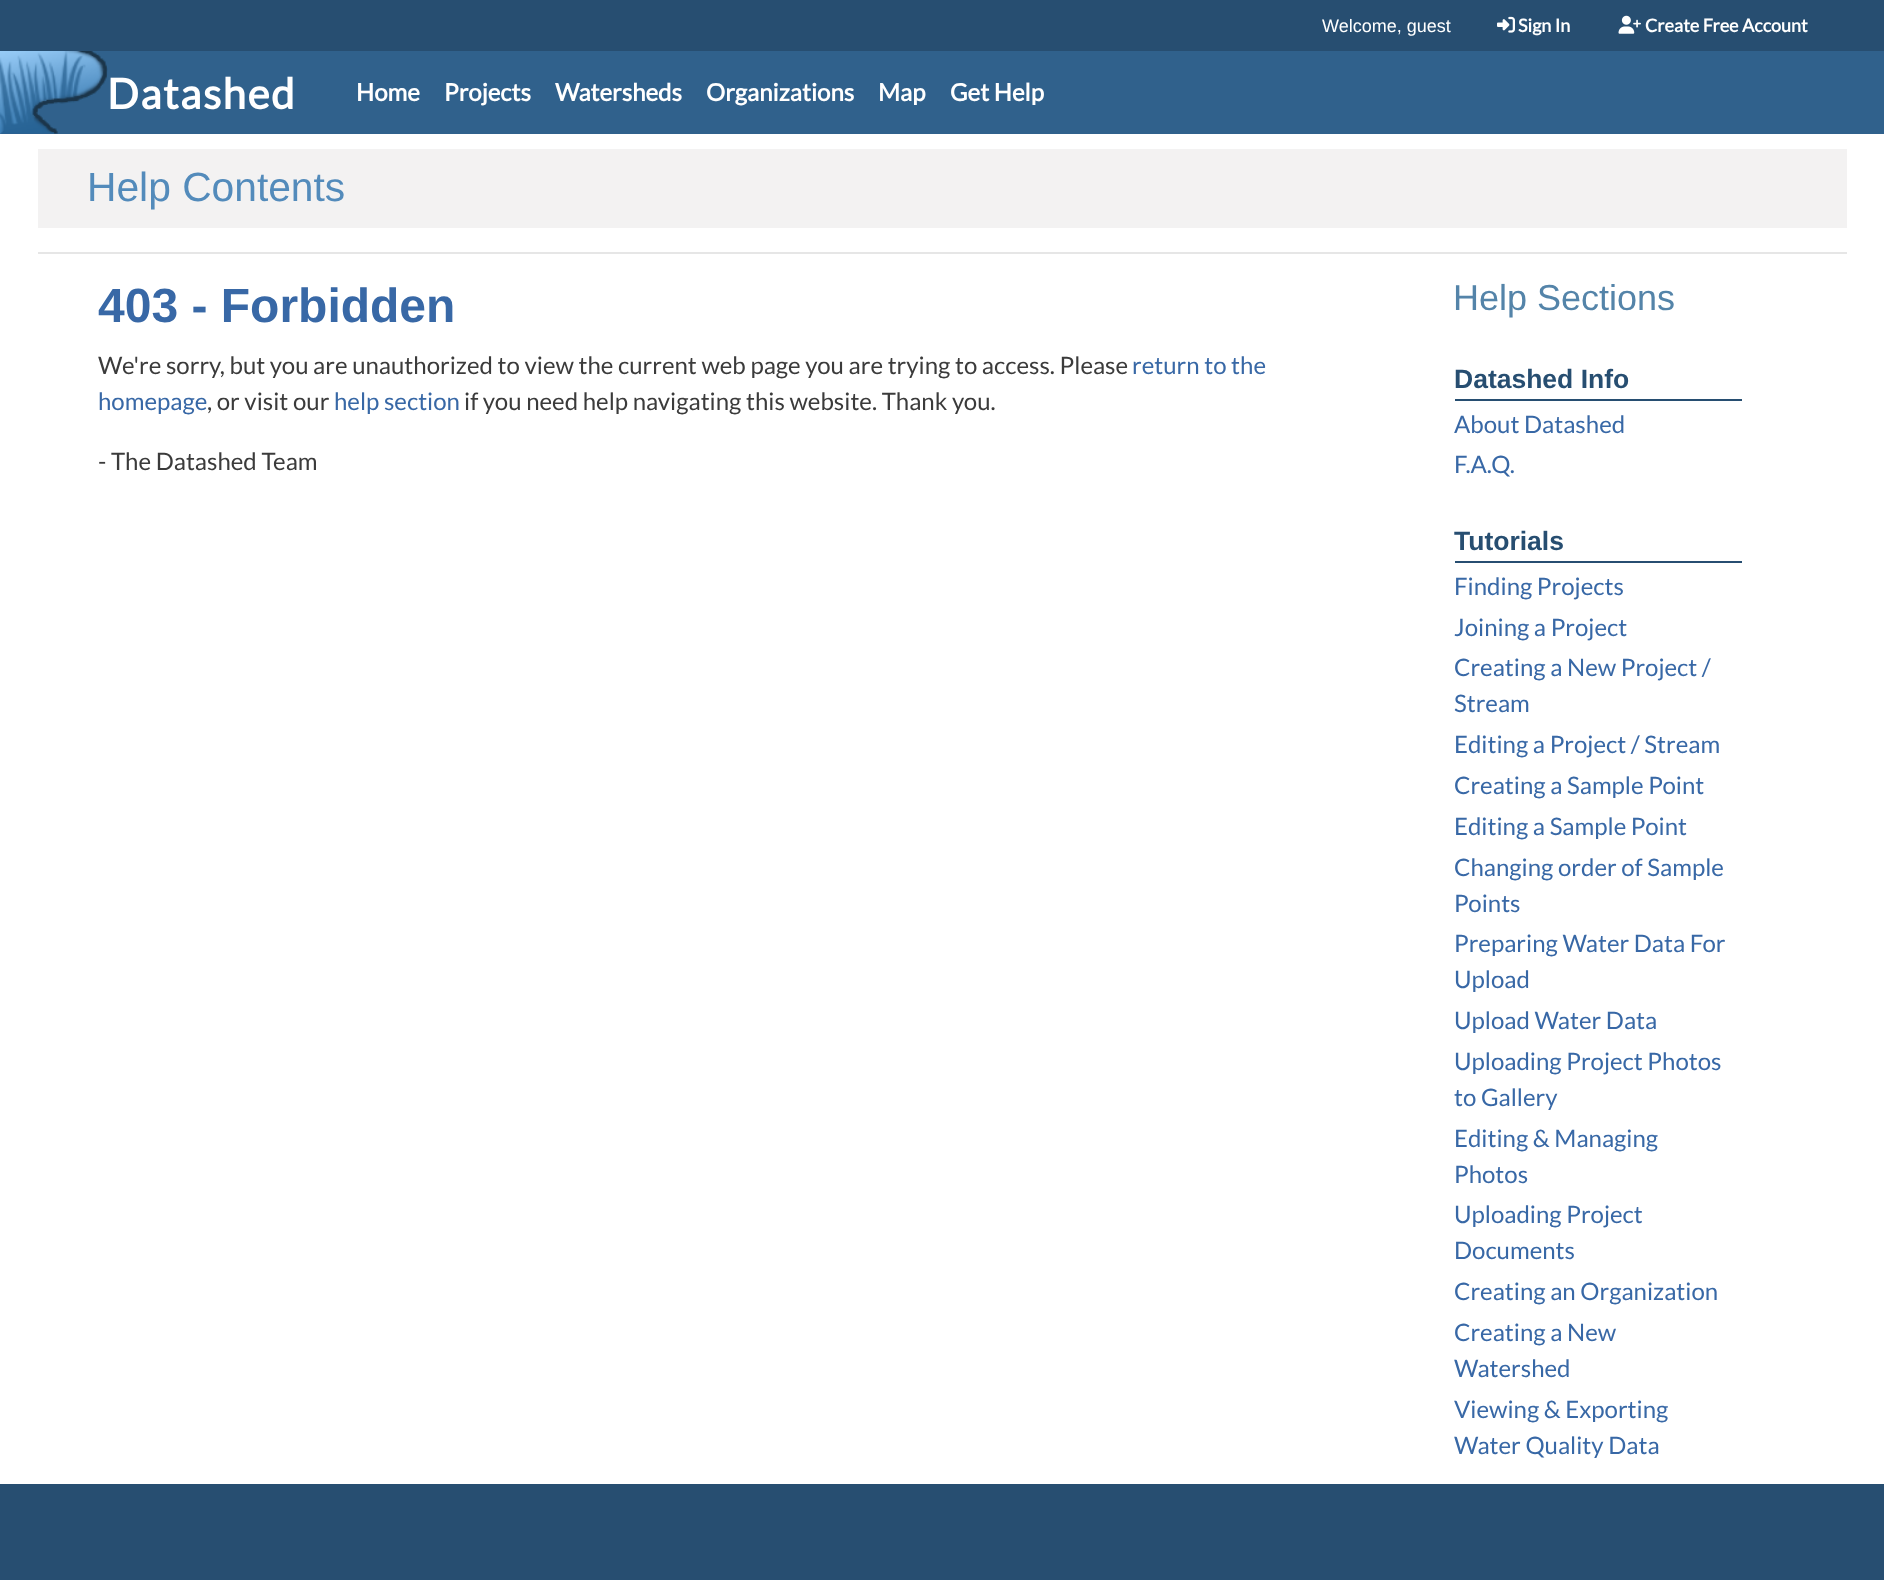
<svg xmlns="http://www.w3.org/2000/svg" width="1884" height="1580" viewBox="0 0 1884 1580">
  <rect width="100%" height="100%" fill="#ffffff"/>
  <rect x="0" y="0" width="1884" height="51" fill="#274e71"/>
  <text x="1322" y="32" font-family="Arimo" font-size="18" fill="#ffffff">Welcome, guest</text>
  <image x="1497" y="16" width="18" height="17" href="img1.png"/>
  <text x="1518" y="32" font-family="Lato" font-size="18" font-weight="bold" fill="#ffffff">Sign In</text>
  <image x="1618" y="15" width="23" height="19" href="img2.png"/>
  <text x="1645" y="32" font-family="Lato" font-size="18" font-weight="bold" fill="#ffffff">Create Free Account</text>
  <rect x="0" y="51" width="1884" height="83" fill="#30618c"/>
  <image x="0" y="51" width="108" height="83" href="img3.png"/>
  <text x="107" y="109" font-family="Lato" font-size="42" font-weight="bold" letter-spacing="1.5" fill="#ffffff">Datashed</text>
  <text x="356" y="101" font-family="Lato" font-size="24" font-weight="bold" fill="#ffffff">Home</text>
  <text x="444" y="101" font-family="Lato" font-size="24" font-weight="bold" fill="#ffffff">Projects</text>
  <text x="555" y="101" font-family="Lato" font-size="24" font-weight="bold" fill="#ffffff">Watersheds</text>
  <text x="706" y="101" font-family="Lato" font-size="24" font-weight="bold" fill="#ffffff">Organizations</text>
  <text x="878" y="101" font-family="Lato" font-size="24" font-weight="bold" fill="#ffffff">Map</text>
  <text x="950" y="101" font-family="Lato" font-size="24" font-weight="bold" fill="#ffffff">Get Help</text>
  <rect x="38" y="149" width="1809" height="79" fill="#f3f2f2"/>
  <text x="87" y="201" font-family="Arimo" font-size="40.75" fill="#538bbb">Help Contents</text>
  <rect x="38" y="252" width="1809" height="2" fill="#e6e6e6"/>
  <text x="98" y="322" font-family="Arimo" font-size="48" font-weight="bold" fill="#3868a6">403 - Forbidden</text>
  <text x="98" y="374" font-family="Lato" font-size="24" fill="#3b3b3b">We're sorry, but you are unauthorized to view the current web page you are trying to access. Please</text>
  <text x="1132" y="374" font-family="Lato" font-size="24" fill="#3868a6">return to the</text>
  <text x="98" y="410" font-family="Lato" font-size="24" fill="#3868a6">homepage</text>
  <text x="207" y="410" font-family="Lato" font-size="24" fill="#3b3b3b">, or visit our</text>
  <text x="334" y="410" font-family="Lato" font-size="24" fill="#3868a6">help section</text>
  <text x="464" y="410" font-family="Lato" font-size="24" fill="#3b3b3b">if you need help navigating this website. Thank you.</text>
  <text x="98" y="470" font-family="Lato" font-size="24" fill="#3b3b3b">- The Datashed Team</text>
  <text x="1453" y="310" font-family="Arimo" font-size="36" fill="#5484a9">Help Sections</text>
  <rect x="1455" y="399" width="287" height="2" fill="#274e71"/>
  <text x="1454" y="388" font-family="Arimo" font-size="26.5" font-weight="bold" fill="#274e71">Datashed Info</text>
  <text x="1454" y="433" font-family="Lato" font-size="24" fill="#3868a6">About Datashed</text>
  <text x="1454" y="473" font-family="Lato" font-size="24" fill="#3868a6">F.A.Q.</text>
  <rect x="1455" y="561" width="287" height="2" fill="#274e71"/>
  <text x="1454" y="550" font-family="Arimo" font-size="26.5" font-weight="bold" fill="#274e71">Tutorials</text>
  <text x="1454" y="595" font-family="Lato" font-size="24" fill="#3868a6">Finding Projects</text>
  <text x="1454" y="636" font-family="Lato" font-size="24" fill="#3868a6">Joining a Project</text>
  <text x="1454" y="676" font-family="Lato" font-size="24" fill="#3868a6">Creating a New Project /</text>
  <text x="1454" y="712" font-family="Lato" font-size="24" fill="#3868a6">Stream</text>
  <text x="1454" y="753" font-family="Lato" font-size="24" fill="#3868a6">Editing a Project / Stream</text>
  <text x="1454" y="794" font-family="Lato" font-size="24" fill="#3868a6">Creating a Sample Point</text>
  <text x="1454" y="835" font-family="Lato" font-size="24" fill="#3868a6">Editing a Sample Point</text>
  <text x="1454" y="876" font-family="Lato" font-size="24" fill="#3868a6">Changing order of Sample</text>
  <text x="1454" y="912" font-family="Lato" font-size="24" fill="#3868a6">Points</text>
  <text x="1454" y="952" font-family="Lato" font-size="24" fill="#3868a6">Preparing Water Data For</text>
  <text x="1454" y="988" font-family="Lato" font-size="24" fill="#3868a6">Upload</text>
  <text x="1454" y="1029" font-family="Lato" font-size="24" fill="#3868a6">Upload Water Data</text>
  <text x="1454" y="1070" font-family="Lato" font-size="24" fill="#3868a6">Uploading Project Photos</text>
  <text x="1454" y="1106" font-family="Lato" font-size="24" fill="#3868a6">to Gallery</text>
  <text x="1454" y="1147" font-family="Lato" font-size="24" fill="#3868a6">Editing &amp; Managing</text>
  <text x="1454" y="1183" font-family="Lato" font-size="24" fill="#3868a6">Photos</text>
  <text x="1454" y="1223" font-family="Lato" font-size="24" fill="#3868a6">Uploading Project</text>
  <text x="1454" y="1259" font-family="Lato" font-size="24" fill="#3868a6">Documents</text>
  <text x="1454" y="1300" font-family="Lato" font-size="24" fill="#3868a6">Creating an Organization</text>
  <text x="1454" y="1341" font-family="Lato" font-size="24" fill="#3868a6">Creating a New</text>
  <text x="1454" y="1377" font-family="Lato" font-size="24" fill="#3868a6">Watershed</text>
  <text x="1454" y="1418" font-family="Lato" font-size="24" fill="#3868a6">Viewing &amp; Exporting</text>
  <text x="1454" y="1454" font-family="Lato" font-size="24" fill="#3868a6">Water Quality Data</text>
  <rect x="0" y="1484" width="1884" height="96" fill="#274e71"/>
</svg>
